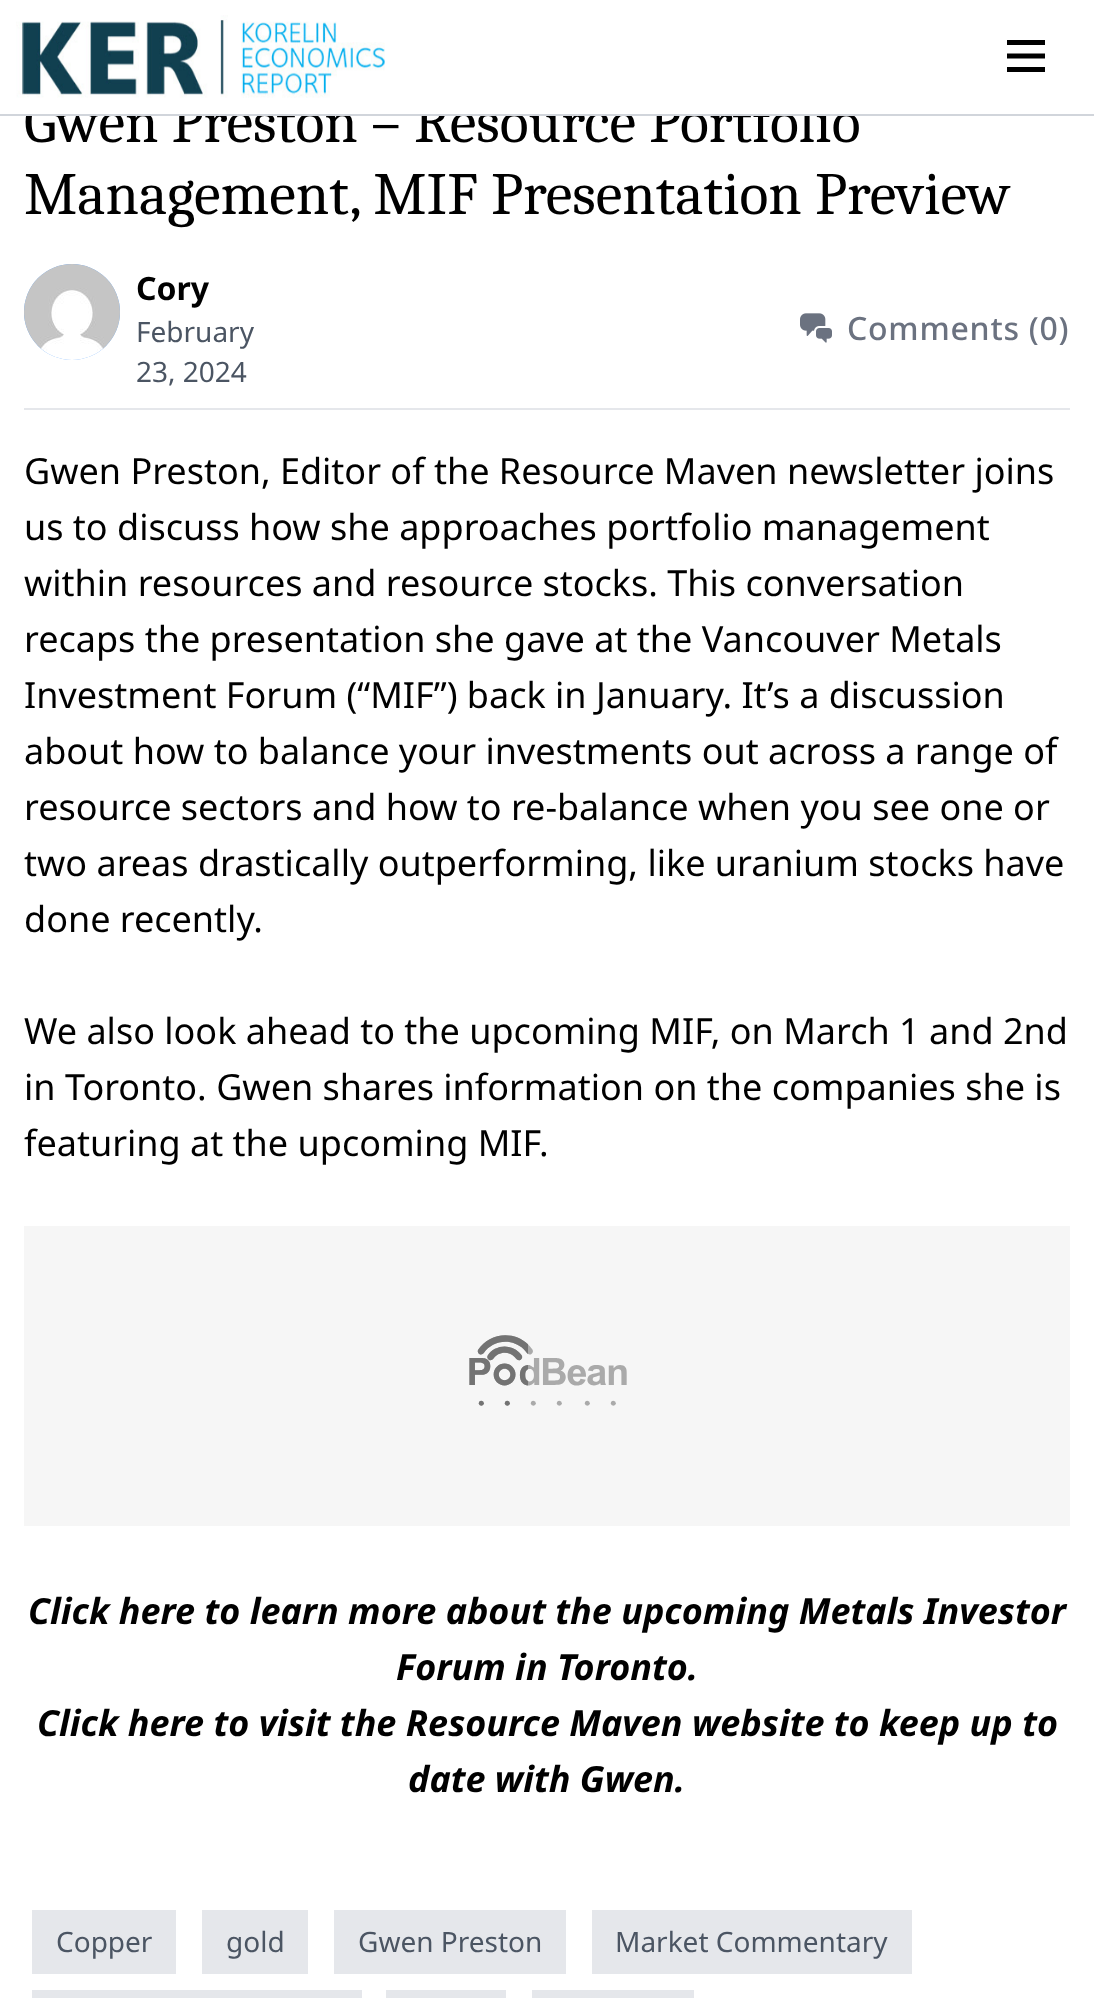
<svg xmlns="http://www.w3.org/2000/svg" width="1094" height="1998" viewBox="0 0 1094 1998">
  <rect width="100%" height="100%" fill="#ffffff"/>
  <text x="24" y="142" font-family="Caladea" font-size="60" fill="#000000">Gwen Preston – Resource Portfolio</text>
  <rect x="26" y="99" width="825" height="15" fill="#ffffff"/>
  <rect x="0" y="114" width="1094" height="2" fill="#d1d5db"/>
  <image x="16" y="15" width="369" height="83" href="img1.png"/>
  <path d="M1007 40H1045V45H1007ZM1007 53.5H1045V58.5H1007ZM1007 67H1045V72H1007Z" fill="#000000"/>
  <text x="24" y="214" font-family="Caladea" font-size="60" fill="#000000">Management, MIF Presentation Preview</text>
  <rect x="24" y="408" width="1046" height="2" fill="#e5e7eb"/>
  <circle cx="72" cy="312" r="48" fill="#60a5fa"/>
  <image x="24" y="264" width="96" height="96" href="img2.png"/>
  <text x="136" y="300" font-family="Noto Sans" font-size="32" font-weight="bold" fill="#000000">Cory</text>
  <text x="136" y="342" font-family="Noto Sans" font-size="28" fill="#4b5563">February</text>
  <text x="136" y="382" font-family="Noto Sans" font-size="28" fill="#4b5563">23, 2024</text>
  <image x="800" y="313" width="32" height="30" href="img3.png"/>
  <text x="847" y="340" font-family="Noto Sans" font-size="32" font-weight="500" letter-spacing="0.75" fill="#6b7280">Comments (0)</text>
  <text x="24" y="484" font-family="Noto Sans" font-size="36" fill="#000000">Gwen Preston, Editor of the Resource Maven newsletter joins</text>
  <text x="24" y="540" font-family="Noto Sans" font-size="36" fill="#000000">us to discuss how she approaches portfolio management</text>
  <text x="24" y="596" font-family="Noto Sans" font-size="36" fill="#000000">within resources and resource stocks. This conversation</text>
  <text x="24" y="652" font-family="Noto Sans" font-size="36" fill="#000000">recaps the presentation she gave at the Vancouver Metals</text>
  <text x="24" y="708" font-family="Noto Sans" font-size="36" fill="#000000">Investment Forum (“MIF”) back in January. It’s a discussion</text>
  <text x="24" y="764" font-family="Noto Sans" font-size="36" fill="#000000">about how to balance your investments out across a range of</text>
  <text x="24" y="820" font-family="Noto Sans" font-size="36" fill="#000000">resource sectors and how to re-balance when you see one or</text>
  <text x="24" y="876" font-family="Noto Sans" font-size="36" fill="#000000">two areas drastically outperforming, like uranium stocks have</text>
  <text x="24" y="932" font-family="Noto Sans" font-size="36" fill="#000000">done recently.</text>
  <text x="24" y="1044" font-family="Noto Sans" font-size="36" fill="#000000">We also look ahead to the upcoming MIF, on March 1 and 2nd</text>
  <text x="24" y="1100" font-family="Noto Sans" font-size="36" fill="#000000">in Toronto. Gwen shares information on the companies she is</text>
  <text x="24" y="1156" font-family="Noto Sans" font-size="36" fill="#000000">featuring at the upcoming MIF.</text>
  <image x="24" y="1226" width="1046" height="300" href="img4.png"/>
  <text x="28" y="1624" font-family="Noto Sans" font-size="36" font-weight="bold" font-style="italic" fill="#000000">Click here to learn more about the upcoming Metals Investor</text>
  <text x="396" y="1680" font-family="Noto Sans" font-size="36" font-weight="bold" font-style="italic" fill="#000000">Forum in Toronto.</text>
  <text x="37" y="1736" font-family="Noto Sans" font-size="36" font-weight="bold" font-style="italic" fill="#000000">Click here to visit the Resource Maven website to keep up to</text>
  <text x="408" y="1792" font-family="Noto Sans" font-size="36" font-weight="bold" font-style="italic" fill="#000000">date with Gwen.</text>
  <rect x="32" y="1910" width="144" height="64" fill="#e5e7eb"/>
  <text x="56" y="1952" font-family="Noto Sans" font-size="28" fill="#4b5563">Copper</text>
  <rect x="202" y="1910" width="106" height="64" fill="#e5e7eb"/>
  <text x="226" y="1952" font-family="Noto Sans" font-size="28" fill="#4b5563">gold</text>
  <rect x="334" y="1910" width="232" height="64" fill="#e5e7eb"/>
  <text x="358" y="1952" font-family="Noto Sans" font-size="28" fill="#4b5563">Gwen Preston</text>
  <rect x="592" y="1910" width="320" height="64" fill="#e5e7eb"/>
  <text x="615" y="1952" font-family="Noto Sans" font-size="28" fill="#4b5563">Market Commentary</text>
  <rect x="32" y="1990" width="330" height="8" fill="#e5e7eb"/>
  <rect x="386" y="1990" width="120" height="8" fill="#e5e7eb"/>
  <rect x="532" y="1990" width="162" height="8" fill="#e5e7eb"/>
</svg>
